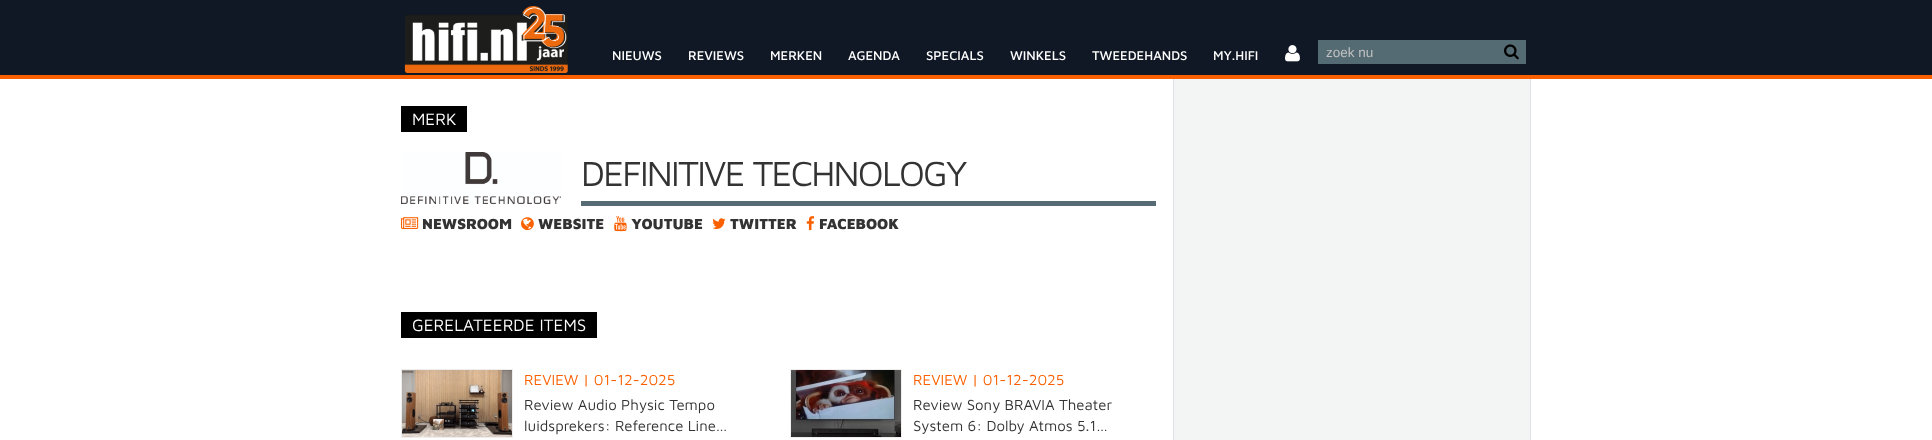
<svg xmlns="http://www.w3.org/2000/svg" width="1932" height="440" viewBox="0 0 1932 440">
  <rect width="100%" height="100%" fill="#ffffff"/>
  <rect x="0" y="0" width="1932" height="75" fill="#101825"/>
  <rect x="0" y="75" width="1932" height="4" fill="#fa6000"/>
  <image x="404" y="6" width="164" height="67" href="img1.png"/>
  <text x="612" y="60" font-family="Maven Pro" font-size="13" font-weight="500" fill="#ffffff">NIEUWS</text>
  <text x="688" y="60" font-family="Maven Pro" font-size="13" font-weight="500" fill="#ffffff">REVIEWS</text>
  <text x="770" y="60" font-family="Maven Pro" font-size="13" font-weight="500" fill="#ffffff">MERKEN</text>
  <text x="848" y="60" font-family="Maven Pro" font-size="13" font-weight="500" fill="#ffffff">AGENDA</text>
  <text x="926" y="60" font-family="Maven Pro" font-size="13" font-weight="500" fill="#ffffff">SPECIALS</text>
  <text x="1010" y="60" font-family="Maven Pro" font-size="13" font-weight="500" fill="#ffffff">WINKELS</text>
  <text x="1092" y="60" font-family="Maven Pro" font-size="13" font-weight="500" fill="#ffffff">TWEEDEHANDS</text>
  <text x="1213" y="60" font-family="Maven Pro" font-size="13" font-weight="500" fill="#ffffff">MY.HIFI</text>
  <image x="1285" y="45" width="15" height="17" href="img2.png"/>
  <rect x="1318" y="40" width="208" height="24" fill="#546b73"/>
  <text x="1326" y="57" font-family="Liberation Sans" font-size="13.5" fill="#c0c0c0">zoek nu</text>
  <image x="1504" y="44" width="15" height="16" href="img3.png"/>
  <rect x="1173" y="79" width="1" height="361" fill="#e1e1e8"/>
  <rect x="401" y="106" width="66" height="26" fill="#000000"/>
  <text x="412" y="125" font-family="Maven Pro" font-size="17" fill="#ffffff">MERK</text>
  <image x="401" y="152" width="160" height="52" href="img4.png"/>
  <text x="581" y="186" font-family="Maven Pro" font-size="36" letter-spacing="-1.8" fill="#333333">DEFINITIVE TECHNOLOGY</text>
  <rect x="581" y="201" width="575" height="5" fill="#576b74"/>
  <image x="401" y="217" width="18" height="12" href="img5.png"/>
  <text x="422" y="229" font-family="Maven Pro" font-size="15" font-weight="900" fill="#333333">NEWSROOM</text>
  <image x="521" y="217" width="13" height="14" href="img6.png"/>
  <text x="538" y="229" font-family="Maven Pro" font-size="15" font-weight="900" fill="#333333">WEBSITE</text>
  <image x="614" y="216" width="13" height="16" href="img7.png"/>
  <text x="631" y="229" font-family="Maven Pro" font-size="15" font-weight="900" fill="#333333">YOUTUBE</text>
  <image x="712" y="218" width="14" height="11" href="img8.png"/>
  <text x="730" y="229" font-family="Maven Pro" font-size="15" font-weight="900" fill="#333333">TWITTER</text>
  <image x="806" y="216" width="9" height="15" href="img9.png"/>
  <text x="819" y="229" font-family="Maven Pro" font-size="15" font-weight="900" fill="#333333">FACEBOOK</text>
  <rect x="401" y="312" width="196" height="26" fill="#000000"/>
  <text x="412" y="331" font-family="Maven Pro" font-size="17" fill="#ffffff">GERELATEERDE ITEMS</text>
  <image x="402" y="370" width="110" height="67" href="img10.png"/>
  <rect x="401.5" y="369.5" width="111" height="68" fill="none" stroke="#eeeeee"/>
  <text x="524" y="385" font-family="Maven Pro" font-size="15" fill="#fa6000">REVIEW | 01-12-2025</text>
  <text x="524" y="410" font-family="Maven Pro" font-size="15" fill="#333333">Review Audio Physic Tempo</text>
  <text x="524" y="431" font-family="Maven Pro" font-size="15" fill="#333333">luidsprekers: Reference Line…</text>
  <image x="791" y="370" width="110" height="67" href="img11.png"/>
  <rect x="790.5" y="369.5" width="111" height="68" fill="none" stroke="#eeeeee"/>
  <text x="913" y="385" font-family="Maven Pro" font-size="15" fill="#fa6000">REVIEW | 01-12-2025</text>
  <text x="913" y="410" font-family="Maven Pro" font-size="15" fill="#333333">Review Sony BRAVIA Theater</text>
  <text x="913" y="431" font-family="Maven Pro" font-size="15" fill="#333333">System 6: Dolby Atmos 5.1…</text>
  <rect x="1174" y="79" width="356" height="361" fill="#f3f5f4"/>
  <rect x="1530" y="79" width="1" height="361" fill="#e1e1e8"/>
</svg>
